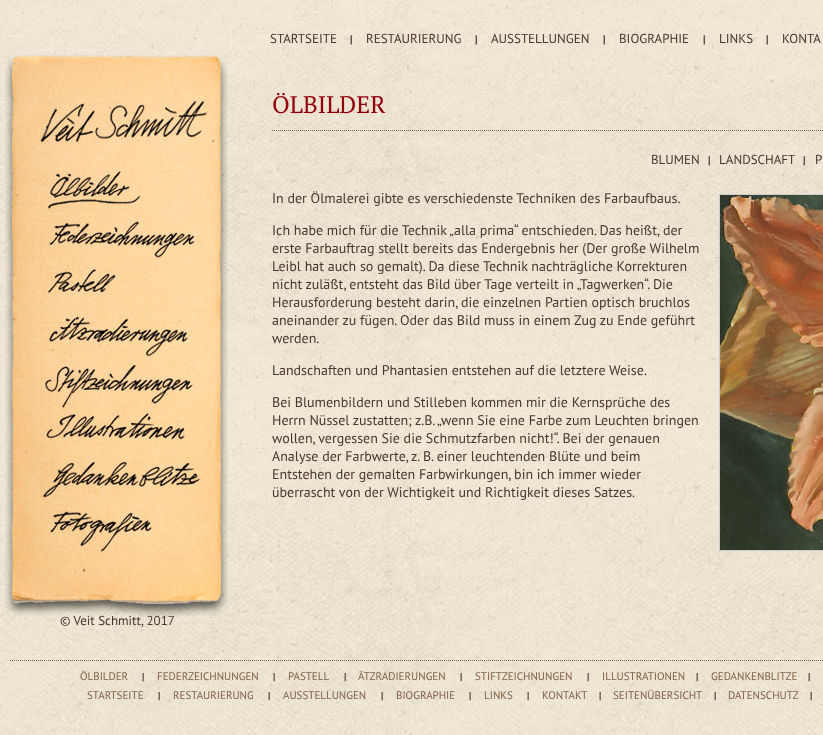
<svg xmlns="http://www.w3.org/2000/svg" width="823" height="735" viewBox="0 0 823 735">
  <rect width="100%" height="100%" fill="#ffffff"/>
  <image x="0" y="0" width="823" height="735" href="img1.png"/>
  <image x="0" y="13" width="823" height="686" href="img2.png"/>
  <text x="270" y="43" font-family="PT Sans" font-size="13" fill="#493729">STARTSEITE</text>
  <text x="350" y="43" font-family="PT Sans" font-size="11" font-weight="bold" fill="#493729">|</text>
  <text x="366" y="43" font-family="PT Sans" font-size="13" fill="#493729">RESTAURIERUNG</text>
  <text x="475" y="43" font-family="PT Sans" font-size="11" font-weight="bold" fill="#493729">|</text>
  <text x="491" y="43" font-family="PT Sans" font-size="13" fill="#493729">AUSSTELLUNGEN</text>
  <text x="603" y="43" font-family="PT Sans" font-size="11" font-weight="bold" fill="#493729">|</text>
  <text x="619" y="43" font-family="PT Sans" font-size="13" fill="#493729">BIOGRAPHIE</text>
  <text x="703" y="43" font-family="PT Sans" font-size="11" font-weight="bold" fill="#493729">|</text>
  <text x="719" y="43" font-family="PT Sans" font-size="13" fill="#493729">LINKS</text>
  <text x="766" y="43" font-family="PT Sans" font-size="11" font-weight="bold" fill="#493729">|</text>
  <text x="782" y="43" font-family="PT Sans" font-size="13" fill="#493729">KONTA</text>
  <path d="M272 130.5H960" fill="none" stroke="#7f6047" stroke-dasharray="1 1"/>
  <text x="272" y="113" font-family="PT Serif" font-size="24" fill="#94000a">ÖLBILDER</text>
  <text x="651" y="164" font-family="PT Sans" font-size="13" fill="#493729">BLUMEN</text>
  <text x="708" y="164" font-family="PT Sans" font-size="11" font-weight="bold" fill="#493729">|</text>
  <text x="719" y="164" font-family="PT Sans" font-size="13" fill="#493729">LANDSCHAFT</text>
  <text x="803" y="164" font-family="PT Sans" font-size="11" font-weight="bold" fill="#493729">|</text>
  <text x="815" y="164" font-family="PT Sans" font-size="13" fill="#493729">P</text>
  <text x="272" y="203" font-family="PT Sans" font-size="14" fill="#493729">In der Ölmalerei gibte es verschiedenste Techniken des Farbaufbaus.</text>
  <rect x="719.5" y="194.5" width="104" height="356" fill="none" stroke="#cccccc"/>
  <image x="720" y="195" width="103" height="355" href="img3.png"/>
  <text x="272" y="235" font-family="PT Sans" font-size="14" fill="#493729">Ich habe mich für die Technik „alla prima“ entschieden. Das heißt, der</text>
  <text x="272" y="253" font-family="PT Sans" font-size="14" fill="#493729">erste Farbauftrag stellt bereits das Endergebnis her (Der große Wilhelm</text>
  <text x="272" y="271" font-family="PT Sans" font-size="14" fill="#493729">Leibl hat auch so gemalt). Da diese Technik nachträgliche Korrekturen</text>
  <text x="272" y="289" font-family="PT Sans" font-size="14" fill="#493729">nicht zuläßt, entsteht das Bild über Tage verteilt in „Tagwerken“. Die</text>
  <text x="272" y="307" font-family="PT Sans" font-size="14" fill="#493729">Herausforderung besteht darin, die einzelnen Partien optisch bruchlos</text>
  <text x="272" y="325" font-family="PT Sans" font-size="14" fill="#493729">aneinander zu fügen. Oder das Bild muss in einem Zug zu Ende geführt</text>
  <text x="272" y="343" font-family="PT Sans" font-size="14" fill="#493729">werden.</text>
  <text x="272" y="375" font-family="PT Sans" font-size="14" fill="#493729">Landschaften und Phantasien entstehen auf die letztere Weise.</text>
  <text x="272" y="407" font-family="PT Sans" font-size="14" fill="#493729">Bei Blumenbildern und Stilleben kommen mir die Kernsprüche des</text>
  <text x="272" y="425" font-family="PT Sans" font-size="14" fill="#493729">Herrn Nüssel zustatten;</text>
  <text x="415" y="425" font-family="PT Sans" font-size="14" fill="#493729">z.B. „wenn Sie eine Farbe zum Leuchten bringen</text>
  <text x="272" y="443" font-family="PT Sans" font-size="14" fill="#493729">wollen, vergessen Sie die Schmutzfarben nicht!“. Bei der genauen</text>
  <text x="272" y="461" font-family="PT Sans" font-size="14" fill="#493729">Analyse der Farbwerte,</text>
  <text x="411" y="461" font-family="PT Sans" font-size="14" fill="#493729">z. B. einer leuchtenden Blüte und beim</text>
  <text x="272" y="479" font-family="PT Sans" font-size="14" fill="#493729">Entstehen der gemalten Farbwirkungen, bin ich immer wieder</text>
  <text x="272" y="497" font-family="PT Sans" font-size="14" fill="#493729">überrascht von der Wichtigkeit und Richtigkeit dieses Satzes.</text>
  <image x="5" y="55" width="223" height="562" href="img4.png"/>
  <image x="40" y="86" width="175" height="58" href="img5.png"/>
  <image x="40" y="170" width="175" height="42" href="img6.png"/>
  <image x="40" y="215" width="175" height="47" href="img7.png"/>
  <image x="40" y="265" width="175" height="44" href="img8.png"/>
  <image x="40" y="312" width="175" height="46" href="img9.png"/>
  <image x="40" y="361" width="175" height="48" href="img10.png"/>
  <image x="40" y="412" width="175" height="44" href="img11.png"/>
  <image x="40" y="459" width="175" height="45" href="img12.png"/>
  <image x="40" y="507" width="175" height="46" href="img13.png"/>
  <text x="60" y="625" font-family="PT Sans" font-size="13" fill="#493729">© Veit Schmitt, 2017</text>
  <path d="M10 660.5H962" fill="none" stroke="#7f6047" stroke-dasharray="1 1"/>
  <text x="80" y="680" font-family="PT Sans" font-size="11" fill="#7f6047">ÖLBILDER</text>
  <text x="142" y="680" font-family="PT Sans" font-size="10" font-weight="bold" fill="#493729">|</text>
  <text x="157" y="680" font-family="PT Sans" font-size="11" fill="#7f6047">FEDERZEICHNUNGEN</text>
  <text x="273" y="680" font-family="PT Sans" font-size="10" font-weight="bold" fill="#493729">|</text>
  <text x="288" y="680" font-family="PT Sans" font-size="11" fill="#7f6047">PASTELL</text>
  <text x="344" y="680" font-family="PT Sans" font-size="10" font-weight="bold" fill="#493729">|</text>
  <text x="358" y="680" font-family="PT Sans" font-size="11" fill="#7f6047">ÄTZRADIERUNGEN</text>
  <text x="460" y="680" font-family="PT Sans" font-size="10" font-weight="bold" fill="#493729">|</text>
  <text x="475" y="680" font-family="PT Sans" font-size="11" fill="#7f6047">STIFTZEICHNUNGEN</text>
  <text x="587" y="680" font-family="PT Sans" font-size="10" font-weight="bold" fill="#493729">|</text>
  <text x="602" y="680" font-family="PT Sans" font-size="11" fill="#7f6047">ILLUSTRATIONEN</text>
  <text x="696" y="680" font-family="PT Sans" font-size="10" font-weight="bold" fill="#493729">|</text>
  <text x="711" y="680" font-family="PT Sans" font-size="11" fill="#7f6047">GEDANKENBLITZE</text>
  <text x="808" y="680" font-family="PT Sans" font-size="10" font-weight="bold" fill="#493729">|</text>
  <text x="87" y="699" font-family="PT Sans" font-size="11" fill="#7f6047">STARTSEITE</text>
  <text x="158" y="699" font-family="PT Sans" font-size="10" font-weight="bold" fill="#493729">|</text>
  <text x="173" y="699" font-family="PT Sans" font-size="11" fill="#7f6047">RESTAURIERUNG</text>
  <text x="268" y="699" font-family="PT Sans" font-size="10" font-weight="bold" fill="#493729">|</text>
  <text x="283" y="699" font-family="PT Sans" font-size="11" fill="#7f6047">AUSSTELLUNGEN</text>
  <text x="381" y="699" font-family="PT Sans" font-size="10" font-weight="bold" fill="#493729">|</text>
  <text x="396" y="699" font-family="PT Sans" font-size="11" fill="#7f6047">BIOGRAPHIE</text>
  <text x="469" y="699" font-family="PT Sans" font-size="10" font-weight="bold" fill="#493729">|</text>
  <text x="484" y="699" font-family="PT Sans" font-size="11" fill="#7f6047">LINKS</text>
  <text x="527" y="699" font-family="PT Sans" font-size="10" font-weight="bold" fill="#493729">|</text>
  <text x="542" y="699" font-family="PT Sans" font-size="11" fill="#7f6047">KONTAKT</text>
  <text x="599" y="699" font-family="PT Sans" font-size="10" font-weight="bold" fill="#493729">|</text>
  <text x="613" y="699" font-family="PT Sans" font-size="11" fill="#7f6047">SEITENÜBERSICHT</text>
  <text x="714" y="699" font-family="PT Sans" font-size="10" font-weight="bold" fill="#493729">|</text>
  <text x="728" y="699" font-family="PT Sans" font-size="11" fill="#7f6047">DATENSCHUTZ</text>
  <text x="810" y="699" font-family="PT Sans" font-size="10" font-weight="bold" fill="#493729">|</text>
</svg>
